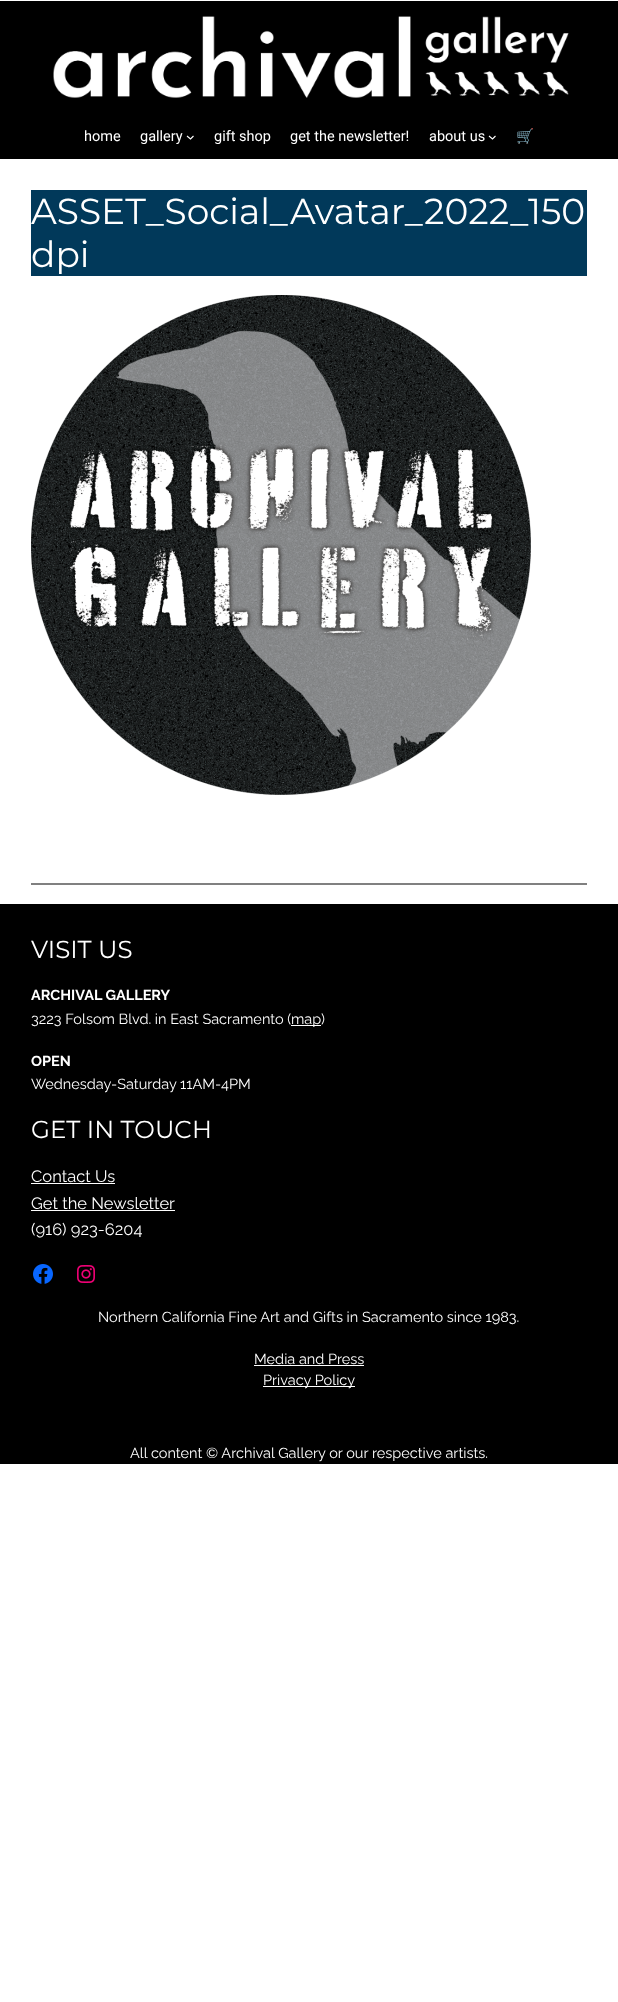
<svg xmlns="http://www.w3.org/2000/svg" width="618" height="2002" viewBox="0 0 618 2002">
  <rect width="100%" height="100%" fill="#ffffff"/>
  <rect x="0" y="1" width="618" height="158" fill="#000000"/>
  <image x="53" y="16" width="516" height="82" href="img1.png"/>
  <text x="84" y="141" font-family="Roboto" font-size="14.5" fill="#ffffff">home</text>
  <text x="140" y="141" font-family="Roboto" font-size="14.5" fill="#ffffff">gallery</text>
  <path d="M187 136L190.5 139L193.5 136" fill="none" stroke="#ffffff" stroke-width="1.1"/>
  <text x="214" y="141" font-family="Roboto" font-size="14.5" fill="#ffffff">gift shop</text>
  <text x="290" y="141" font-family="Roboto" font-size="14.5" fill="#ffffff">get the newsletter!</text>
  <text x="429" y="141" font-family="Roboto" font-size="14.5" fill="#ffffff">about us</text>
  <path d="M489 136L492.5 139L495.5 136" fill="none" stroke="#ffffff" stroke-width="1.1"/>
  <text x="516" y="141" font-family="Noto Color Emoji" font-size="14.5" fill="#ffffff">🛒</text>
  <rect x="31" y="190" width="556" height="86" fill="#01395a"/>
  <text x="31" y="224" font-family="Montserrat" font-size="36" fill="#ffffff">ASSET_Social_Avatar_2022_150</text>
  <text x="31" y="267" font-family="Montserrat" font-size="36" fill="#ffffff">dpi</text>
  <image x="31" y="295" width="500" height="500" href="img2.png"/>
  <rect x="31" y="883" width="556" height="2" fill="#808080"/>
  <rect x="0" y="904" width="618" height="560" fill="#000000"/>
  <text x="31" y="958" font-family="Montserrat" font-size="24.5" fill="#ffffff">VISIT US</text>
  <text x="31" y="1000" font-family="Raleway" font-size="14.5" font-weight="bold" fill="#ffffff">ARCHIVAL GALLERY</text>
  <text x="31" y="1024" font-family="Raleway" font-size="14.5" fill="#ffffff">3223 Folsom Blvd. in East Sacramento (</text>
  <rect x="291" y="1025" width="30" height="1" fill="#ffffff"/>
  <text x="291" y="1024" font-family="Raleway" font-size="14.5" fill="#ffffff">map</text>
  <text x="321" y="1024" font-family="Raleway" font-size="14.5" fill="#ffffff">)</text>
  <text x="31" y="1066" font-family="Raleway" font-size="14.5" font-weight="bold" fill="#ffffff">OPEN</text>
  <text x="31" y="1089" font-family="Raleway" font-size="14.5" fill="#ffffff">Wednesday-Saturday 11AM-4PM</text>
  <text x="31" y="1138" font-family="Montserrat" font-size="24.5" fill="#ffffff">GET IN TOUCH</text>
  <text x="31" y="1182" font-family="Raleway" font-size="16.5" fill="#ffffff">Contact Us</text>
  <rect x="31" y="1183" width="84" height="1" fill="#ffffff"/>
  <text x="31" y="1209" font-family="Raleway" font-size="16.5" fill="#ffffff">Get the Newsletter</text>
  <rect x="31" y="1210" width="144" height="1" fill="#ffffff"/>
  <text x="31" y="1235" font-family="Raleway" font-size="16.5" fill="#ffffff">(916) 923-6204</text>
  <image x="33" y="1264" width="20" height="20" href="img3.png"/>
  <image x="77" y="1265" width="18" height="18" href="img4.png"/>
  <text x="98" y="1322" font-family="Raleway" font-size="14.5" fill="#ffffff">Northern California Fine Art and Gifts in Sacramento since 1983.</text>
  <text x="254" y="1364" font-family="Raleway" font-size="14.5" fill="#ffffff">Media and Press</text>
  <rect x="254" y="1365" width="110" height="1" fill="#ffffff"/>
  <rect x="263" y="1386" width="92" height="1" fill="#ffffff"/>
  <text x="263" y="1385" font-family="Raleway" font-size="14.5" fill="#ffffff">Privacy Policy</text>
  <text x="130" y="1458" font-family="Raleway" font-size="14.5" fill="#ffffff">All content © Archival Gallery or our respective artists.</text>
</svg>
